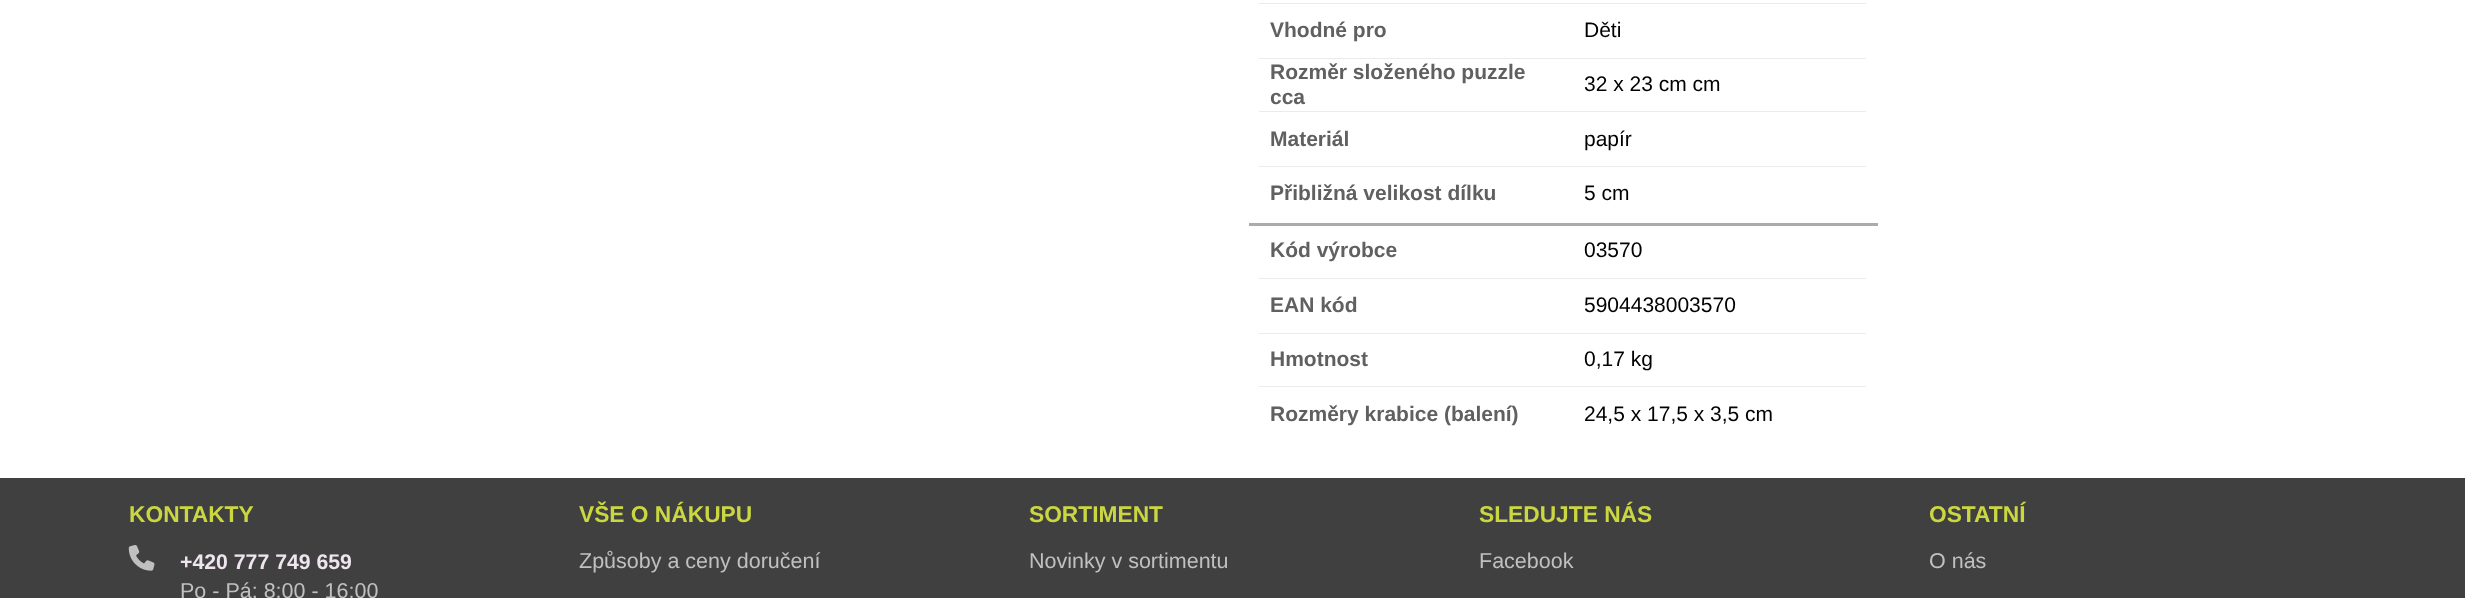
<svg xmlns="http://www.w3.org/2000/svg" width="2465" height="598" viewBox="0 0 2465 598">
  <rect width="100%" height="100%" fill="#ffffff"/>
  <rect x="1259" y="3" width="607" height="1" fill="#ebebeb"/>
  <text x="1270" y="37" font-family="Liberation Sans" font-size="21" font-weight="bold" fill="#606060">Vhodné pro</text>
  <text x="1584" y="37" font-family="Liberation Sans" font-size="21" fill="#000000">Děti</text>
  <rect x="1259" y="58" width="607" height="1" fill="#ebebeb"/>
  <text x="1270" y="79" font-family="Liberation Sans" font-size="21" font-weight="bold" fill="#606060">Rozměr složeného puzzle</text>
  <text x="1270" y="104" font-family="Liberation Sans" font-size="21" font-weight="bold" fill="#606060">cca</text>
  <text x="1584" y="91" font-family="Liberation Sans" font-size="21" fill="#000000">32 x 23 cm cm</text>
  <rect x="1259" y="111" width="607" height="1" fill="#ebebeb"/>
  <text x="1270" y="146" font-family="Liberation Sans" font-size="21" font-weight="bold" fill="#606060">Materiál</text>
  <text x="1584" y="146" font-family="Liberation Sans" font-size="21" fill="#000000">papír</text>
  <rect x="1259" y="166" width="607" height="1" fill="#ebebeb"/>
  <text x="1270" y="200" font-family="Liberation Sans" font-size="21" font-weight="bold" fill="#606060">Přibližná velikost dílku</text>
  <text x="1584" y="200" font-family="Liberation Sans" font-size="21" fill="#000000">5 cm</text>
  <rect x="1249" y="223" width="629" height="3" fill="#ababab"/>
  <text x="1270" y="257" font-family="Liberation Sans" font-size="21" font-weight="bold" fill="#606060">Kód výrobce</text>
  <text x="1584" y="257" font-family="Liberation Sans" font-size="21" fill="#000000">03570</text>
  <rect x="1259" y="278" width="607" height="1" fill="#ebebeb"/>
  <text x="1270" y="312" font-family="Liberation Sans" font-size="21" font-weight="bold" fill="#606060">EAN kód</text>
  <text x="1584" y="312" font-family="Liberation Sans" font-size="21" fill="#000000">5904438003570</text>
  <rect x="1259" y="333" width="607" height="1" fill="#ebebeb"/>
  <text x="1270" y="366" font-family="Liberation Sans" font-size="21" font-weight="bold" fill="#606060">Hmotnost</text>
  <text x="1584" y="366" font-family="Liberation Sans" font-size="21" fill="#000000">0,17 kg</text>
  <rect x="1259" y="386" width="607" height="1" fill="#ebebeb"/>
  <text x="1270" y="421" font-family="Liberation Sans" font-size="21" font-weight="bold" fill="#606060">Rozměry krabice (balení)</text>
  <text x="1584" y="421" font-family="Liberation Sans" font-size="21" fill="#000000">24,5 x 17,5 x 3,5 cm</text>
  <rect x="0" y="478" width="2465" height="120" fill="#404040"/>
  <text x="129" y="522" font-family="Liberation Sans" font-size="22.75" font-weight="bold" fill="#cbd741">KONTAKTY</text>
  <image x="128" y="545" width="27" height="26" href="img1.png"/>
  <text x="180" y="569" font-family="Liberation Sans" font-size="21.25" font-weight="bold" fill="#efe5ef">+420 777 749 659</text>
  <text x="180" y="598" font-family="Liberation Sans" font-size="21.5" fill="#c0c0c0">Po - Pá: 8:00 - 16:00</text>
  <text x="579" y="522" font-family="Liberation Sans" font-size="22.75" font-weight="bold" fill="#cbd741">VŠE O NÁKUPU</text>
  <text x="579" y="568" font-family="Liberation Sans" font-size="21.5" fill="#c0c0c0">Způsoby a ceny doručení</text>
  <text x="1029" y="522" font-family="Liberation Sans" font-size="22.75" font-weight="bold" fill="#cbd741">SORTIMENT</text>
  <text x="1029" y="568" font-family="Liberation Sans" font-size="21.5" fill="#c0c0c0">Novinky v sortimentu</text>
  <text x="1479" y="522" font-family="Liberation Sans" font-size="22.75" font-weight="bold" fill="#cbd741">SLEDUJTE NÁS</text>
  <text x="1479" y="568" font-family="Liberation Sans" font-size="21.5" fill="#c0c0c0">Facebook</text>
  <text x="1929" y="522" font-family="Liberation Sans" font-size="22.75" font-weight="bold" fill="#cbd741">OSTATNÍ</text>
  <text x="1929" y="568" font-family="Liberation Sans" font-size="21.5" fill="#c0c0c0">O nás</text>
</svg>
